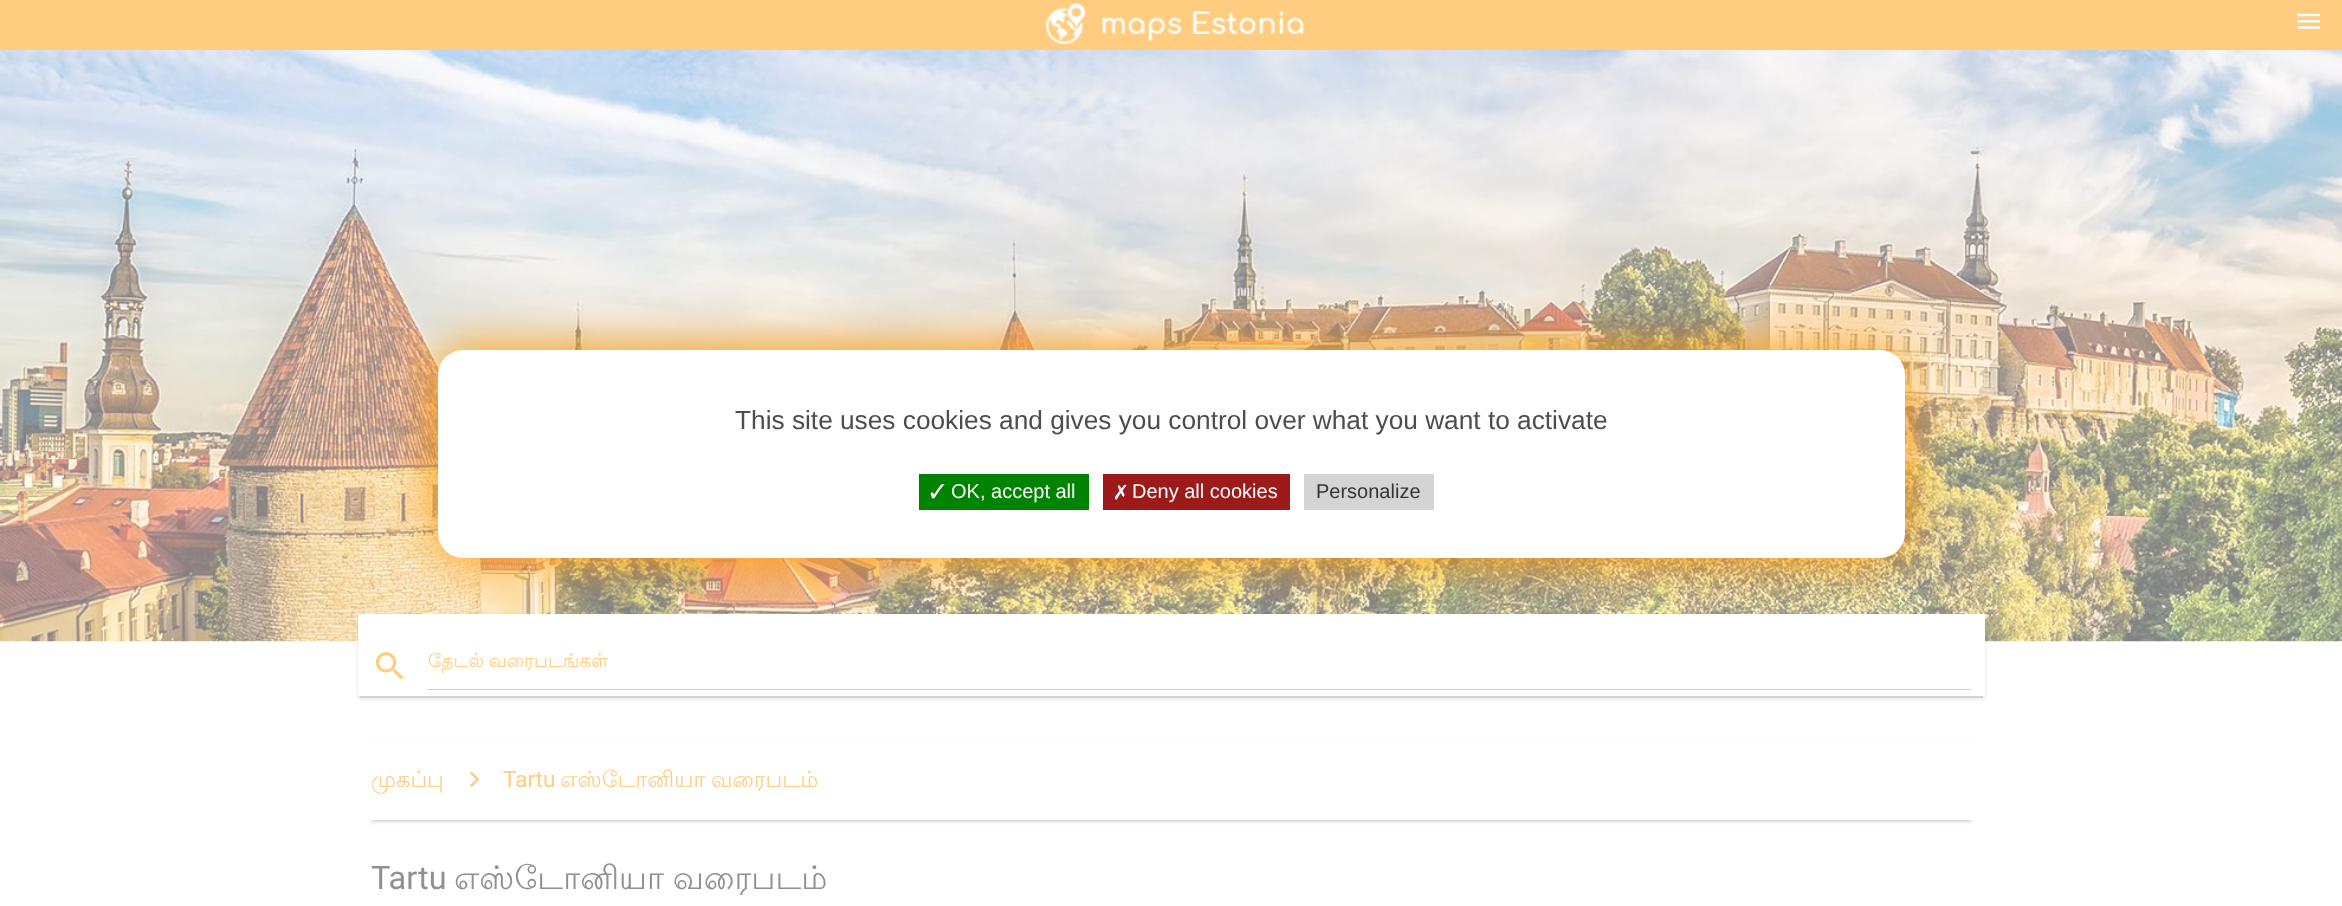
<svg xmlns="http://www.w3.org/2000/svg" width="2342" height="906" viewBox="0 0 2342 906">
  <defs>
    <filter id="blur1" x="-50%" y="-200%" width="200%" height="500%"><feGaussianBlur stdDeviation="0.5"/></filter>
    <filter id="blur2" x="-50%" y="-200%" width="200%" height="500%"><feGaussianBlur stdDeviation="3"/></filter>
    <filter id="blur3" x="-50%" y="-200%" width="200%" height="500%"><feGaussianBlur stdDeviation="1"/></filter>
    <filter id="blur4" x="-50%" y="-200%" width="200%" height="500%"><feGaussianBlur stdDeviation="25"/></filter>
  </defs>
  <rect width="100%" height="100%" fill="#ffffff"/>
  <rect x="0" y="0" width="2342" height="50" fill="#ffcc80"/>
  <image x="1046" y="3" width="258" height="41" href="img1.png"/>
  <image x="2297" y="13" width="23" height="16" href="img2.png"/>
  <image x="0" y="50" width="2342" height="592" href="img3.png"/>
  <rect x="360" y="620" width="1623" height="78" fill="#808080" fill-opacity="0.2" filter="url(#blur1)"/>
  <rect x="358" y="615" width="1627" height="83" rx="2.5" fill="#808080" fill-opacity="0.12" filter="url(#blur2)"/>
  <rect x="358" y="616" width="1627" height="83" rx="2.5" fill="#808080" fill-opacity="0.14" filter="url(#blur3)"/>
  <rect x="358" y="614" width="1627" height="82" rx="2.5" fill="#ffffff"/>
  <rect x="438" y="350" width="1467" height="208" rx="25" fill="#ff9800" filter="url(#blur4)"/>
  <rect x="438" y="350" width="1467" height="208" rx="25" fill="#ffffff"/>
  <text x="735" y="429" font-family="Liberation Sans" font-size="26.25" fill="#4d4d4d">This site uses cookies and gives you control over what you want to activate</text>
  <rect x="919" y="474" width="170" height="36" fill="#008300"/>
  <text x="930" y="498" font-family="FreeSans" font-size="20" fill="#ffffff">✓</text>
  <text x="951" y="498" font-family="Liberation Sans" font-size="20" fill="#ffffff">OK, accept all</text>
  <rect x="1103" y="474" width="187" height="36" fill="#9c1a1a"/>
  <text x="1115" y="498" font-family="FreeSans" font-size="20" fill="#ffffff">✗</text>
  <text x="1132" y="498" font-family="Liberation Sans" font-size="20" fill="#ffffff">Deny all cookies</text>
  <rect x="1304" y="474" width="130" height="36" fill="#d4d4d4"/>
  <text x="1316" y="498" font-family="Liberation Sans" font-size="20" fill="#333333">Personalize</text>
  <image x="375" y="652" width="29" height="28" href="img4.png"/>
  <text x="428" y="667" word-spacing="-1" font-family="Lohit Tamil" font-size="18.75" fill="#ffcc80">தேடல் வரைபடங்கள்</text>
  <rect x="428" y="689" width="1543" height="1" fill="#cfcfcf"/>
  <rect x="374" y="746" width="1595" height="75" fill="#808080" fill-opacity="0.2" filter="url(#blur1)"/>
  <rect x="371" y="741" width="1600" height="80" fill="#808080" fill-opacity="0.12" filter="url(#blur2)"/>
  <rect x="371" y="743" width="1600" height="80" fill="#808080" fill-opacity="0.14" filter="url(#blur3)"/>
  <rect x="368" y="740" width="1606" height="80" fill="#ffffff"/>
  <text x="371" y="787" font-family="Lohit Tamil" font-size="22.5" fill="#ffcc80">முகப்பு</text>
  <image x="470" y="771" width="10" height="17" href="img5.png"/>
  <text x="503" y="787" font-family="Roboto" font-size="22.5" fill="#ffcc80">Tartu</text>
  <text x="560" y="787" word-spacing="-1" font-family="Lohit Tamil" font-size="22.5" fill="#ffcc80">எஸ்டோனியா வரைபடம்</text>
  <text x="371" y="889" font-family="Roboto" font-size="32.5" fill="#909090">Tartu</text>
  <text x="454" y="889" word-spacing="-1" font-family="Lohit Tamil" font-size="32.5" fill="#909090">எஸ்டோனியா வரைபடம்</text>
</svg>
